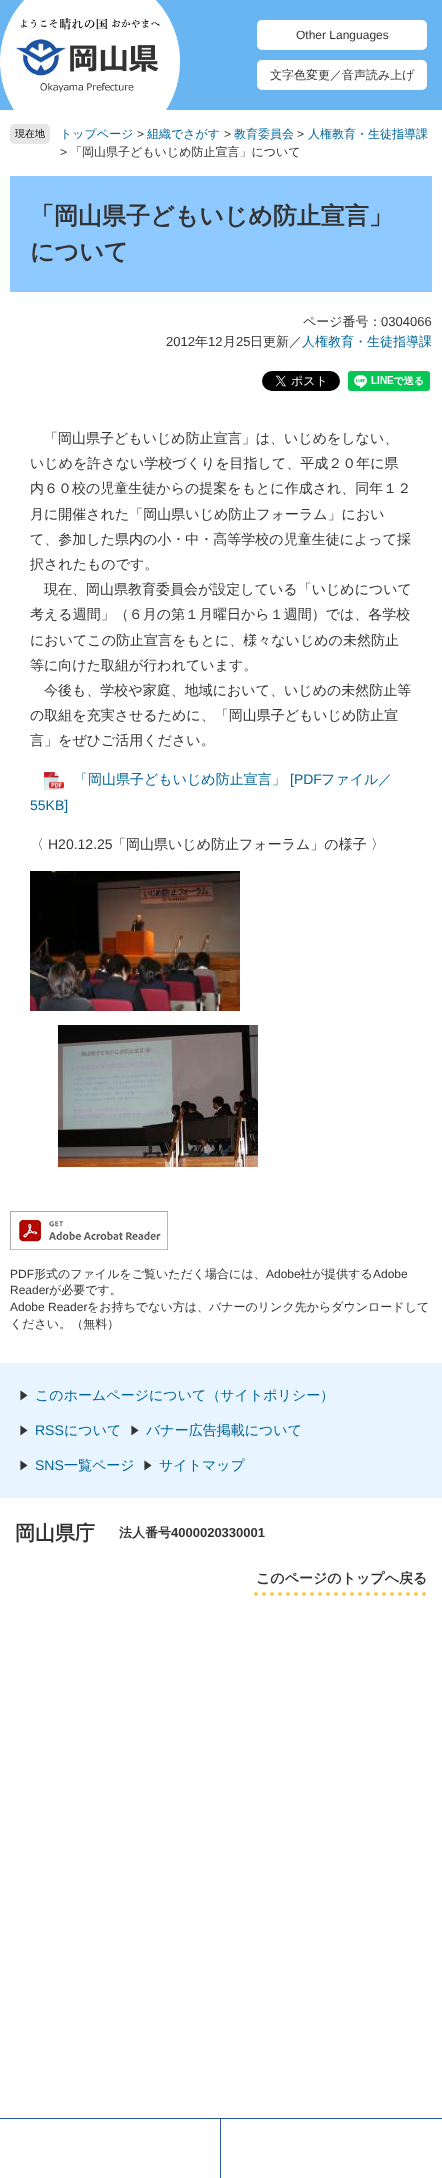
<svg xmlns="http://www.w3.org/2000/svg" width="442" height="2178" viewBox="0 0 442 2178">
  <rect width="100%" height="100%" fill="#ffffff"/>
  <rect x="0" y="0" width="442" height="110" fill="#69b5f2"/>
  <image x="0" y="0" width="180" height="110" href="img1.png"/>
  <image x="16" y="18" width="144" height="75" href="img2.png"/>
  <rect x="257" y="20" width="170" height="30" rx="5" fill="#ffffff"/>
  <text x="296" y="39" font-family="Liberation Sans" font-size="12" fill="#333333">Other Languages</text>
  <rect x="257" y="60" width="170" height="30" rx="5" fill="#ffffff"/>
  <text x="270" y="79" font-family="WenQuanYi Zen Hei" font-size="12" font-weight="500" fill="#333333">文字色変更／音声読み上げ</text>
  <rect x="0" y="2118" width="442" height="1" fill="#2a56a8"/>
  <rect x="220" y="2118" width="1" height="60" fill="#2a56a8"/>
  <rect x="10" y="124" width="40" height="20" rx="5" fill="#e6e6e6"/>
  <text x="15" y="137" font-family="WenQuanYi Zen Hei" font-size="10" font-weight="500" fill="#000000">現在地</text>
  <text x="60" y="138" font-family="WenQuanYi Zen Hei" font-size="12" font-weight="500" fill="#006699">トップページ</text>
  <text x="137" y="138" font-family="Liberation Sans" font-size="12" fill="#333333">&gt;</text>
  <text x="147" y="138" font-family="WenQuanYi Zen Hei" font-size="12" font-weight="500" fill="#006699">組織でさがす</text>
  <text x="224" y="138" font-family="Liberation Sans" font-size="12" fill="#333333">&gt;</text>
  <text x="234" y="138" font-family="WenQuanYi Zen Hei" font-size="12" font-weight="500" fill="#006699">教育委員会</text>
  <text x="297" y="138" font-family="Liberation Sans" font-size="12" fill="#333333">&gt;</text>
  <text x="308" y="138" font-family="WenQuanYi Zen Hei" font-size="12" font-weight="500" fill="#006699">人権教育・生徒指導課</text>
  <text x="60" y="156" font-family="Liberation Sans" font-size="12" fill="#333333">&gt;</text>
  <text x="70" y="156" font-family="WenQuanYi Zen Hei" font-size="12" font-weight="500" fill="#333333">「岡山県子どもいじめ防止宣言」について</text>
  <rect x="10" y="176" width="422" height="116" fill="#8ec9ff"/>
  <text x="30" y="224" font-family="WenQuanYi Zen Hei" font-size="24" font-weight="bold" fill="#333333">「岡山県子どもいじめ防止宣言」</text>
  <text x="30" y="260" font-family="WenQuanYi Zen Hei" font-size="24" font-weight="bold" fill="#333333">について</text>
  <text x="303" y="326" font-family="WenQuanYi Zen Hei" font-size="13" font-weight="500" fill="#333333">ページ番号：</text>
  <text x="381" y="326" font-family="Liberation Sans" font-size="13" fill="#333333">0304066</text>
  <text x="166" y="346" font-family="Liberation Sans" font-size="13" fill="#333333">2012</text>
  <text x="195" y="346" font-family="WenQuanYi Zen Hei" font-size="13" font-weight="500" fill="#333333">年</text>
  <text x="208" y="346" font-family="Liberation Sans" font-size="13" fill="#333333">12</text>
  <text x="223" y="346" font-family="WenQuanYi Zen Hei" font-size="13" font-weight="500" fill="#333333">月</text>
  <text x="236" y="346" font-family="Liberation Sans" font-size="13" fill="#333333">25</text>
  <text x="250" y="346" font-family="WenQuanYi Zen Hei" font-size="13" font-weight="500" fill="#333333">日更新／</text>
  <text x="302" y="346" font-family="WenQuanYi Zen Hei" font-size="13" font-weight="500" fill="#006699">人権教育・生徒指導課</text>
  <image x="262" y="371" width="78" height="20" href="img3.png"/>
  <image x="348" y="371" width="82" height="20" href="img4.png"/>
  <text x="44" y="443" font-family="WenQuanYi Zen Hei" font-size="14" font-weight="500" fill="#333333">「岡山県子どもいじめ防止宣言」は、いじめをしない、</text>
  <text x="30" y="468" font-family="WenQuanYi Zen Hei" font-size="14" font-weight="500" fill="#333333">いじめを許さない学校づくりを目指して、平成２０年に県</text>
  <text x="30" y="493" font-family="WenQuanYi Zen Hei" font-size="14" font-weight="500" fill="#333333">内６０校の児童生徒からの提案をもとに作成され、同年１２</text>
  <text x="30" y="519" font-family="WenQuanYi Zen Hei" font-size="14" font-weight="500" fill="#333333">月に開催された「岡山県いじめ防止フォーラム」におい</text>
  <text x="30" y="544" font-family="WenQuanYi Zen Hei" font-size="14" font-weight="500" fill="#333333">て、参加した県内の小・中・高等学校の児童生徒によって採</text>
  <text x="30" y="569" font-family="WenQuanYi Zen Hei" font-size="14" font-weight="500" fill="#333333">択されたものです。</text>
  <text x="44" y="594" font-family="WenQuanYi Zen Hei" font-size="14" font-weight="500" fill="#333333">現在、岡山県教育委員会が設定している「いじめについて</text>
  <text x="30" y="619" font-family="WenQuanYi Zen Hei" font-size="14" font-weight="500" fill="#333333">考える週間」（６月の第１月曜日から１週間）では、各学校</text>
  <text x="30" y="645" font-family="WenQuanYi Zen Hei" font-size="14" font-weight="500" fill="#333333">においてこの防止宣言をもとに、様々ないじめの未然防止</text>
  <text x="30" y="670" font-family="WenQuanYi Zen Hei" font-size="14" font-weight="500" fill="#333333">等に向けた取組が行われています。</text>
  <text x="44" y="695" font-family="WenQuanYi Zen Hei" font-size="14" font-weight="500" fill="#333333">今後も、学校や家庭、地域において、いじめの未然防止等</text>
  <text x="30" y="720" font-family="WenQuanYi Zen Hei" font-size="14" font-weight="500" fill="#333333">の取組を充実させるために、「岡山県子どもいじめ防止宣</text>
  <text x="30" y="745" font-family="WenQuanYi Zen Hei" font-size="14" font-weight="500" fill="#333333">言」をぜひご活用ください。</text>
  <image x="44" y="772" width="20" height="18" href="img5.png"/>
  <text x="74" y="784" font-family="WenQuanYi Zen Hei" font-size="14" font-weight="500" fill="#006699">「岡山県子どもいじめ防止宣言」</text>
  <text x="290" y="784" font-family="Liberation Sans" font-size="14" fill="#006699">[PDF</text>
  <text x="321" y="784" font-family="WenQuanYi Zen Hei" font-size="14" font-weight="500" fill="#006699">ファイル／</text>
  <text x="30" y="810" font-family="Liberation Sans" font-size="14" fill="#006699">55KB]</text>
  <text x="30" y="849" font-family="WenQuanYi Zen Hei" font-size="14" font-weight="500" fill="#333333">〈</text>
  <text x="48" y="849" font-family="Liberation Sans" font-size="14" fill="#333333">H20.12.25</text>
  <text x="112" y="849" font-family="WenQuanYi Zen Hei" font-size="14" font-weight="500" fill="#333333">「岡山県いじめ防止フォーラム」の様子 〉</text>
  <image x="30" y="871" width="210" height="140" href="img6.png"/>
  <image x="58" y="1025" width="200" height="142" href="img7.png"/>
  <image x="10" y="1211" width="158" height="39" href="img8.png"/>
  <text x="10" y="1278" font-family="Liberation Sans" font-size="12" fill="#333333">PDF</text>
  <text x="34" y="1278" font-family="WenQuanYi Zen Hei" font-size="12" font-weight="500" fill="#333333">形式のファイルをご覧いただく場合には、</text>
  <text x="266" y="1278" font-family="Liberation Sans" font-size="12" fill="#333333">Adobe</text>
  <text x="300" y="1278" font-family="WenQuanYi Zen Hei" font-size="12" font-weight="500" fill="#333333">社が提供する</text>
  <text x="373" y="1278" font-family="Liberation Sans" font-size="12" fill="#333333">Adobe</text>
  <text x="10" y="1294" font-family="Liberation Sans" font-size="12" fill="#333333">Reader</text>
  <text x="49" y="1294" font-family="WenQuanYi Zen Hei" font-size="12" font-weight="500" fill="#333333">が必要です。</text>
  <text x="10" y="1311" font-family="Liberation Sans" font-size="12" fill="#333333">Adobe Reader</text>
  <text x="87" y="1311" font-family="WenQuanYi Zen Hei" font-size="12" font-weight="500" fill="#333333">をお持ちでない方は、バナーのリンク先からダウンロードして</text>
  <text x="10" y="1328" font-family="WenQuanYi Zen Hei" font-size="12" font-weight="500" fill="#333333">ください。（無料）</text>
  <rect x="0" y="1363" width="442" height="135" fill="#e8f4ff"/>
  <image x="20" y="1390" width="8" height="11" href="img9.png"/>
  <text x="35" y="1400" font-family="WenQuanYi Zen Hei" font-size="14" font-weight="500" fill="#006699">このホームページについて（サイトポリシー）</text>
  <image x="20" y="1425" width="8" height="11" href="img9.png"/>
  <text x="35" y="1435" font-family="Liberation Sans" font-size="14" fill="#006699">RSS</text>
  <text x="64" y="1435" font-family="WenQuanYi Zen Hei" font-size="14" font-weight="500" fill="#006699">について</text>
  <image x="131" y="1425" width="8" height="11" href="img9.png"/>
  <text x="146" y="1435" font-family="WenQuanYi Zen Hei" font-size="14" font-weight="500" fill="#006699">バナー広告掲載について</text>
  <image x="20" y="1460" width="8" height="11" href="img9.png"/>
  <text x="35" y="1470" font-family="Liberation Sans" font-size="14" fill="#006699">SNS</text>
  <text x="64" y="1470" font-family="WenQuanYi Zen Hei" font-size="14" font-weight="500" fill="#006699">一覧ページ</text>
  <image x="144" y="1460" width="8" height="11" href="img9.png"/>
  <text x="159" y="1470" font-family="WenQuanYi Zen Hei" font-size="14" font-weight="500" fill="#006699">サイトマップ</text>
  <text x="15" y="1540" font-family="WenQuanYi Zen Hei" font-size="20" font-weight="bold" fill="#333333">岡山県庁</text>
  <text x="119" y="1537" font-family="WenQuanYi Zen Hei" font-size="13" font-weight="bold" fill="#333333">法人番号</text>
  <text x="171" y="1537" font-family="Liberation Sans" font-size="13" font-weight="bold" fill="#333333">4000020330001</text>
  <path d="M256 1594H427" fill="none" stroke="#facb4b" stroke-width="4" stroke-linecap="round" stroke-dasharray="0 8"/>
  <text x="256" y="1583" font-family="WenQuanYi Zen Hei" font-size="14" font-weight="bold" fill="#333333">このページのトップへ戻る</text>
</svg>
